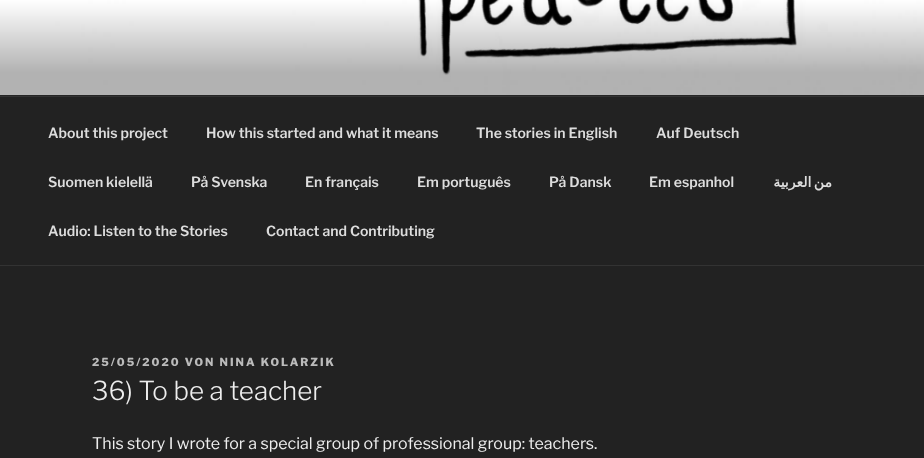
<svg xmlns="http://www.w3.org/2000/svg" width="924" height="458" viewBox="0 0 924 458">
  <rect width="100%" height="100%" fill="#222222"/>
  <rect x="0" y="95" width="924" height="1" fill="#262626"/>
  <image x="0" y="0" width="924" height="95" href="img1.png"/>
  <rect x="0" y="96" width="924" height="1" fill="#333333"/>
  <rect x="0" y="265" width="924" height="1" fill="#333333"/>
  <text x="48" y="138" font-family="Libre Franklin" font-size="14" font-weight="600" fill="#dddddd">About this project</text>
  <text x="206" y="138" font-family="Libre Franklin" font-size="14" font-weight="600" fill="#dddddd">How this started and what it means</text>
  <text x="476" y="138" font-family="Libre Franklin" font-size="14" font-weight="600" fill="#dddddd">The stories in English</text>
  <text x="656" y="138" font-family="Libre Franklin" font-size="14" font-weight="600" fill="#dddddd">Auf Deutsch</text>
  <text x="48" y="187" font-family="Libre Franklin" font-size="14" font-weight="600" fill="#dddddd">Suomen kielellä</text>
  <text x="191" y="187" font-family="Libre Franklin" font-size="14" font-weight="600" fill="#dddddd">På Svenska</text>
  <text x="305" y="187" font-family="Libre Franklin" font-size="14" font-weight="600" fill="#dddddd">En français</text>
  <text x="417" y="187" font-family="Libre Franklin" font-size="14" font-weight="600" fill="#dddddd">Em português</text>
  <text x="549" y="187" font-family="Libre Franklin" font-size="14" font-weight="600" fill="#dddddd">På Dansk</text>
  <text x="649" y="187" font-family="Libre Franklin" font-size="14" font-weight="600" fill="#dddddd">Em espanhol</text>
  <text x="832" y="187" word-spacing="-2" font-family="DejaVu Sans" font-size="14" font-weight="bold" direction="rtl" fill="#dddddd">من العربية</text>
  <text x="48" y="236" font-family="Libre Franklin" font-size="14" font-weight="600" fill="#dddddd">Audio: Listen to the Stories</text>
  <text x="266" y="236" font-family="Libre Franklin" font-size="14" font-weight="600" fill="#dddddd">Contact and Contributing</text>
  <text x="92" y="366" font-family="Libre Franklin" font-size="11" font-weight="800" letter-spacing="2" fill="#bbbbbb">25/05/2020 VON NINA KOLARZIK</text>
  <text x="92" y="400" font-family="Libre Franklin" font-size="26" font-weight="300" fill="#eeeeee">36) To be a teacher</text>
  <text x="92" y="449" font-family="Libre Franklin" font-size="16" fill="#eeeeee">This story I wrote for a special group of professional group: teachers.</text>
</svg>
